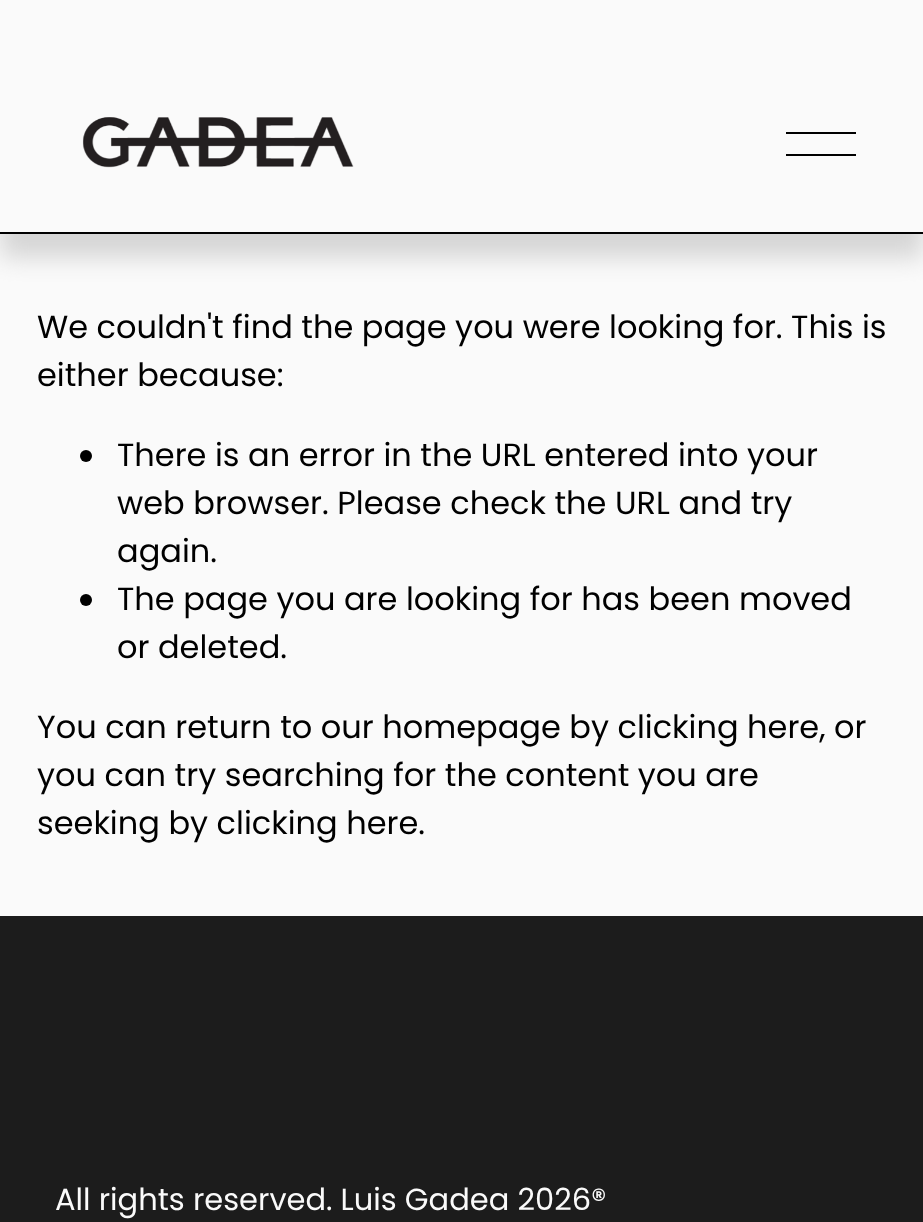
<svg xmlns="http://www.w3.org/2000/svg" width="923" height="1222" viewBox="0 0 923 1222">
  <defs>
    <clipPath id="clip1"><rect x="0" y="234" width="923" height="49"/></clipPath>
    <filter id="blur1" x="-50%" y="-200%" width="200%" height="500%"><feGaussianBlur stdDeviation="12"/></filter>
  </defs>
  <rect width="100%" height="100%" fill="#fafafa"/>
  <g clip-path="url(#clip1)">
    <rect x="0" y="24" width="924" height="234" fill="#d5d5d5" filter="url(#blur1)"/>
  </g>
  <image x="82" y="117" width="272" height="51" href="img1.png"/>
  <rect x="786" y="132" width="70" height="2" fill="#000000"/>
  <rect x="786" y="154" width="70" height="2" fill="#000000"/>
  <rect x="0" y="232" width="923" height="2" fill="#000000"/>
  <text x="37" y="338" font-family="Poppins" font-size="32" fill="#000000">We couldn't find the page you were looking for. This is</text>
  <text x="37" y="386" font-family="Poppins" font-size="32" fill="#000000">either because:</text>
  <circle cx="86" cy="456" r="6" fill="#000000"/>
  <text x="117" y="466" font-family="Poppins" font-size="32" fill="#000000">There is an error in the URL entered into your</text>
  <text x="117" y="514" font-family="Poppins" font-size="32" fill="#000000">web browser. Please check the URL and try</text>
  <text x="117" y="562" font-family="Poppins" font-size="32" fill="#000000">again.</text>
  <circle cx="86" cy="600" r="6" fill="#000000"/>
  <text x="117" y="610" font-family="Poppins" font-size="32" fill="#000000">The page you are looking for has been moved</text>
  <text x="117" y="658" font-family="Poppins" font-size="32" fill="#000000">or deleted.</text>
  <text x="37" y="738" font-family="Poppins" font-size="32" fill="#000000">You can return to our homepage by clicking here, or</text>
  <text x="37" y="786" font-family="Poppins" font-size="32" fill="#000000">you can try searching for the content you are</text>
  <text x="37" y="834" font-family="Poppins" font-size="32" fill="#000000">seeking by clicking here.</text>
  <rect x="0" y="916" width="923" height="306" fill="#1c1c1c"/>
  <text x="55" y="1210" font-family="Poppins" font-size="30.5" fill="#fafafa">All rights reserved. Luis Gadea 2026®</text>
</svg>
